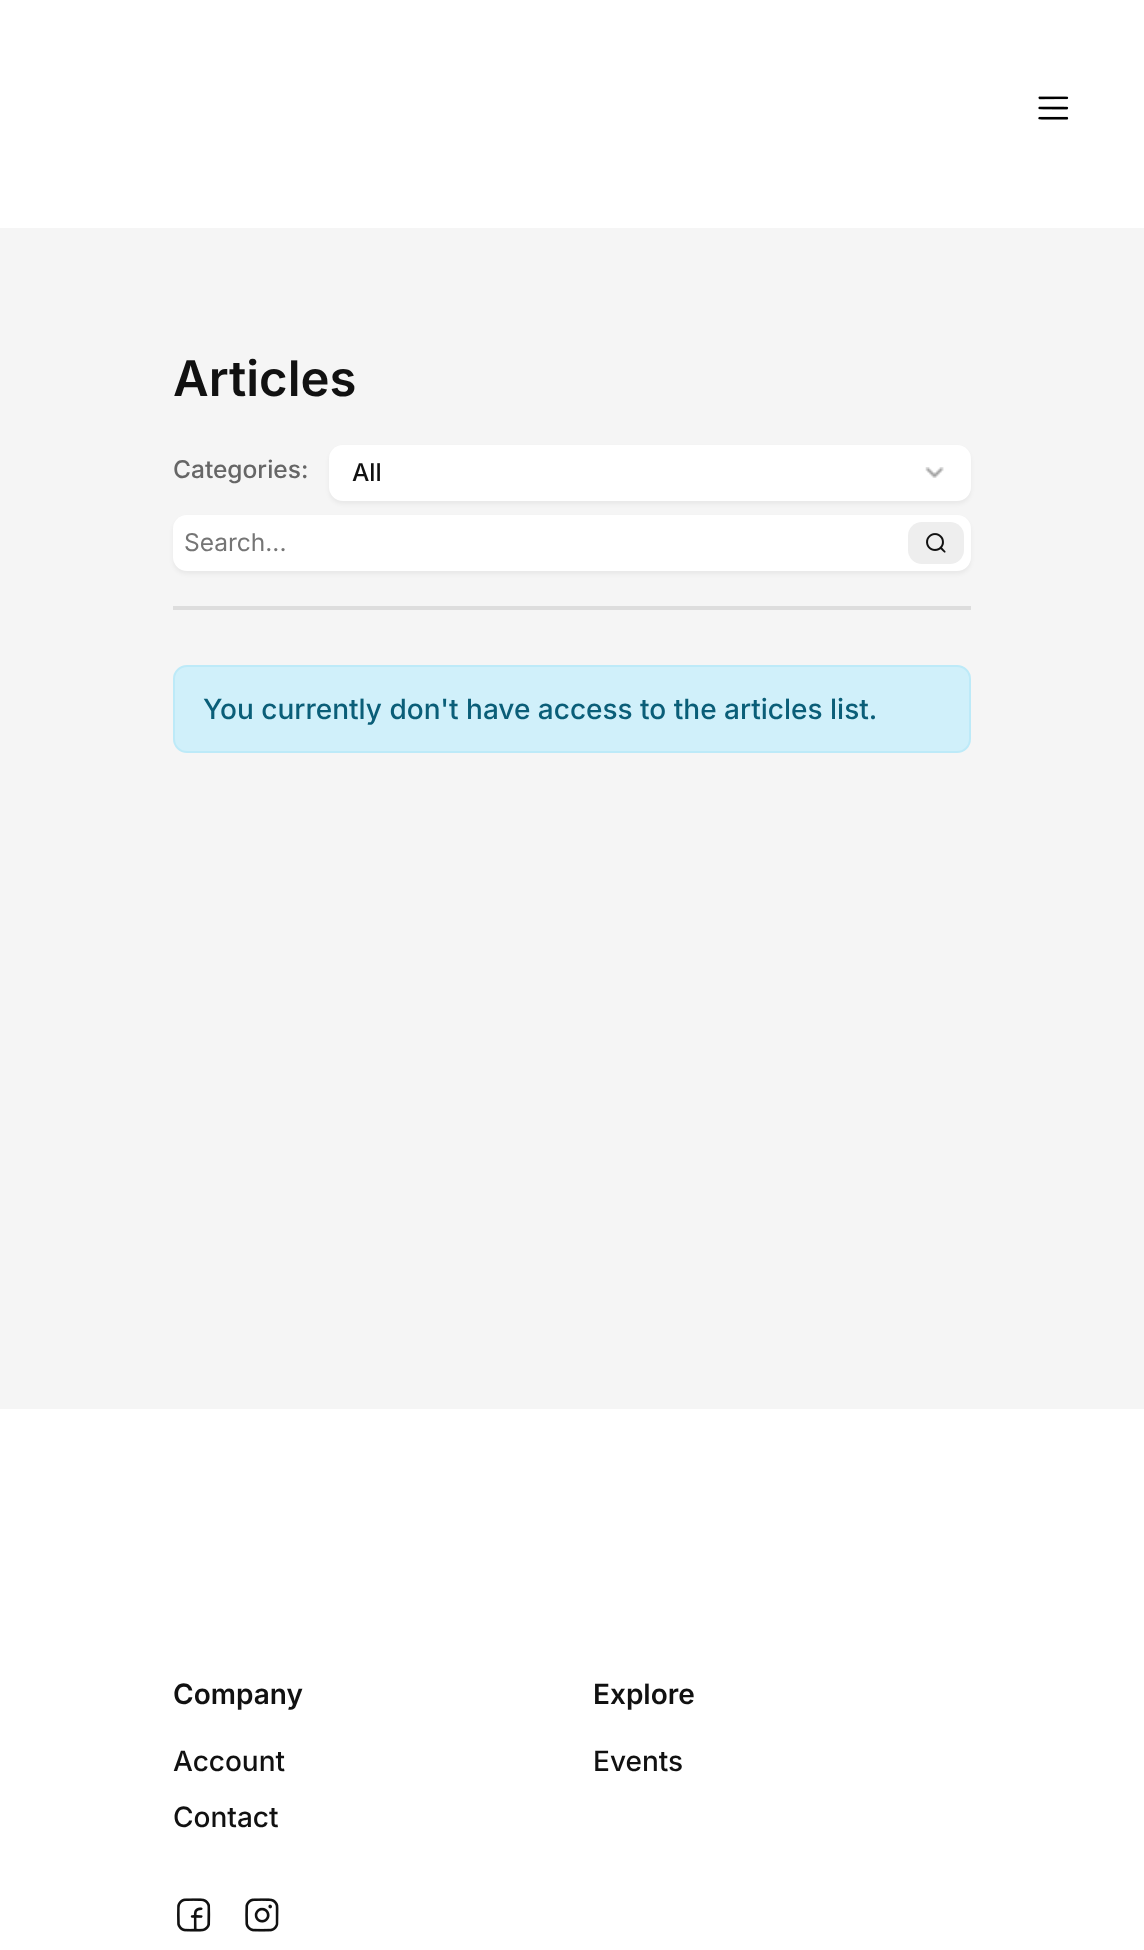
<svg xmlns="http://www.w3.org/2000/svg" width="1144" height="1950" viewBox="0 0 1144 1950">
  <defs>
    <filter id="blur1" x="-50%" y="-200%" width="200%" height="500%"><feGaussianBlur stdDeviation="2"/></filter>
  </defs>
  <rect width="100%" height="100%" fill="#f5f5f5"/>
  <rect x="0" y="0" width="1144" height="228" fill="#ffffff"/>
  <image x="1038" y="96" width="31" height="24" href="img1.png"/>
  <text x="173" y="396" font-family="Inter" font-size="49" font-weight="600" fill="#111111">Articles</text>
  <text x="173" y="478" font-family="Inter" font-size="24.5" font-weight="500" fill="#666666">Categories:</text>
  <rect x="329" y="448" width="642" height="56" rx="14" fill="#121212" fill-opacity="0.05" filter="url(#blur1)"/>
  <rect x="329" y="445" width="642" height="56" rx="14" fill="#ffffff"/>
  <image x="925" y="467" width="19" height="11" href="img2.png"/>
  <text x="352" y="481" font-family="Inter" font-size="24.5" font-weight="500" fill="#111111">All</text>
  <rect x="173" y="518" width="798" height="56" rx="14" fill="#121212" fill-opacity="0.05" filter="url(#blur1)"/>
  <rect x="173" y="515" width="798" height="56" rx="14" fill="#ffffff"/>
  <text x="184" y="551" font-family="Inter" font-size="24.5" fill="#757575">Search...</text>
  <rect x="908" y="522" width="56" height="42" rx="14" fill="#eeeeee"/>
  <image x="926" y="533" width="20" height="20" href="img3.png"/>
  <rect x="173" y="606" width="798" height="4" fill="#dddddd"/>
  <rect x="174" y="666" width="796" height="86" rx="13" fill="#d0f0fa" stroke="#bdeaf8" stroke-width="2"/>
  <text x="203" y="719" font-family="Inter" font-size="28" font-weight="500" fill="#0a5e78">You currently don't have access to the articles list.</text>
  <rect x="0" y="1409" width="1144" height="541" fill="#ffffff"/>
  <text x="173" y="1704" font-family="Inter" font-size="28" font-weight="600" fill="#111111">Company</text>
  <text x="173" y="1771" font-family="Inter" font-size="28" font-weight="500" fill="#111111">Account</text>
  <text x="173" y="1827" font-family="Inter" font-size="28" font-weight="500" fill="#111111">Contact</text>
  <text x="593" y="1704" font-family="Inter" font-size="28" font-weight="600" fill="#111111">Explore</text>
  <text x="593" y="1771" font-family="Inter" font-size="28" font-weight="500" fill="#111111">Events</text>
  <image x="177" y="1898" width="34" height="34" href="img4.png"/>
  <image x="245" y="1898" width="34" height="34" href="img5.png"/>
</svg>
